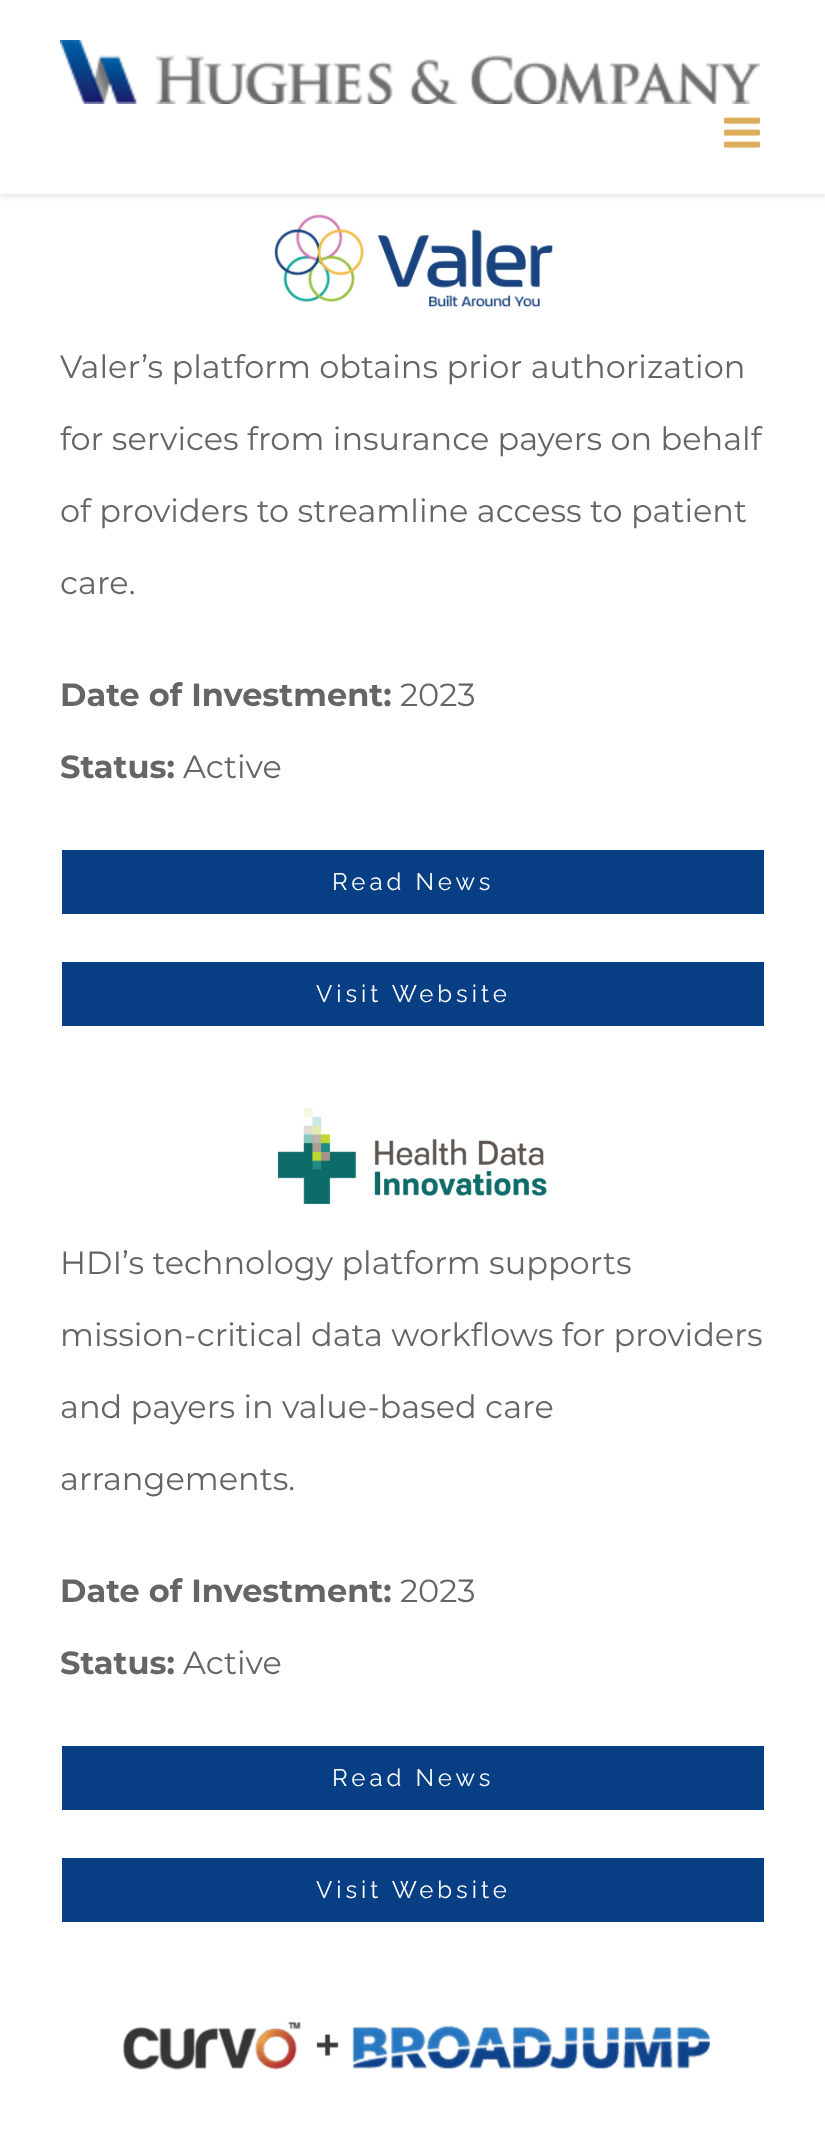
<svg xmlns="http://www.w3.org/2000/svg" width="825" height="2134" viewBox="0 0 825 2134">
  <defs>
    <filter id="blur1" x="-50%" y="-200%" width="200%" height="500%"><feGaussianBlur stdDeviation="3"/></filter>
  </defs>
  <rect width="100%" height="100%" fill="#ffffff"/>
  <rect x="0" y="2" width="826" height="194" fill="#000000" fill-opacity="0.12" filter="url(#blur1)"/>
  <rect x="0" y="0" width="825" height="194" fill="#ffffff"/>
  <image x="60" y="40" width="700" height="64" href="img1.png"/>
  <image x="724" y="117" width="36" height="31" href="img2.png"/>
  <image x="272" y="212" width="282" height="96" href="img3.png"/>
  <text x="60" y="378" font-family="Montserrat" font-size="32" fill="#646567">Valer’s platform obtains prior authorization</text>
  <text x="60" y="450" font-family="Montserrat" font-size="32" fill="#646567">for services from insurance payers on behalf</text>
  <text x="60" y="522" font-family="Montserrat" font-size="32" fill="#646567">of providers to streamline access to patient</text>
  <text x="60" y="594" font-family="Montserrat" font-size="32" fill="#646567">care.</text>
  <text x="60" y="706" font-family="Montserrat" font-size="32" font-weight="bold" fill="#646567">Date of Investment:</text>
  <text x="400" y="706" font-family="Montserrat" font-size="32" fill="#646567">2023</text>
  <text x="60" y="778" font-family="Montserrat" font-size="32" font-weight="bold" fill="#646567">Status:</text>
  <text x="183" y="778" font-family="Montserrat" font-size="32" fill="#646567">Active</text>
  <rect x="62" y="850" width="702" height="64" fill="#073e84"/>
  <text x="332" y="890" font-family="Raleway" font-size="24" letter-spacing="4" fill="#ffffff">Read News</text>
  <rect x="62" y="962" width="702" height="64" fill="#073e84"/>
  <text x="316" y="1002" font-family="Raleway" font-size="24" letter-spacing="4" fill="#ffffff">Visit Website</text>
  <image x="278" y="1108" width="269" height="96" href="img4.png"/>
  <text x="60" y="1274" font-family="Montserrat" font-size="32" fill="#646567">HDI’s technology platform supports</text>
  <text x="60" y="1346" font-family="Montserrat" font-size="32" fill="#646567">mission-critical data workflows for providers</text>
  <text x="60" y="1418" font-family="Montserrat" font-size="32" fill="#646567">and payers in value-based care</text>
  <text x="60" y="1490" font-family="Montserrat" font-size="32" fill="#646567">arrangements.</text>
  <text x="60" y="1602" font-family="Montserrat" font-size="32" font-weight="bold" fill="#646567">Date of Investment:</text>
  <text x="400" y="1602" font-family="Montserrat" font-size="32" fill="#646567">2023</text>
  <text x="60" y="1674" font-family="Montserrat" font-size="32" font-weight="bold" fill="#646567">Status:</text>
  <text x="183" y="1674" font-family="Montserrat" font-size="32" fill="#646567">Active</text>
  <rect x="62" y="1746" width="702" height="64" fill="#073e84"/>
  <text x="332" y="1786" font-family="Raleway" font-size="24" letter-spacing="4" fill="#ffffff">Read News</text>
  <rect x="62" y="1858" width="702" height="64" fill="#073e84"/>
  <text x="316" y="1898" font-family="Raleway" font-size="24" letter-spacing="4" fill="#ffffff">Visit Website</text>
  <image x="122" y="2021" width="588" height="49" href="img5.png"/>
</svg>
